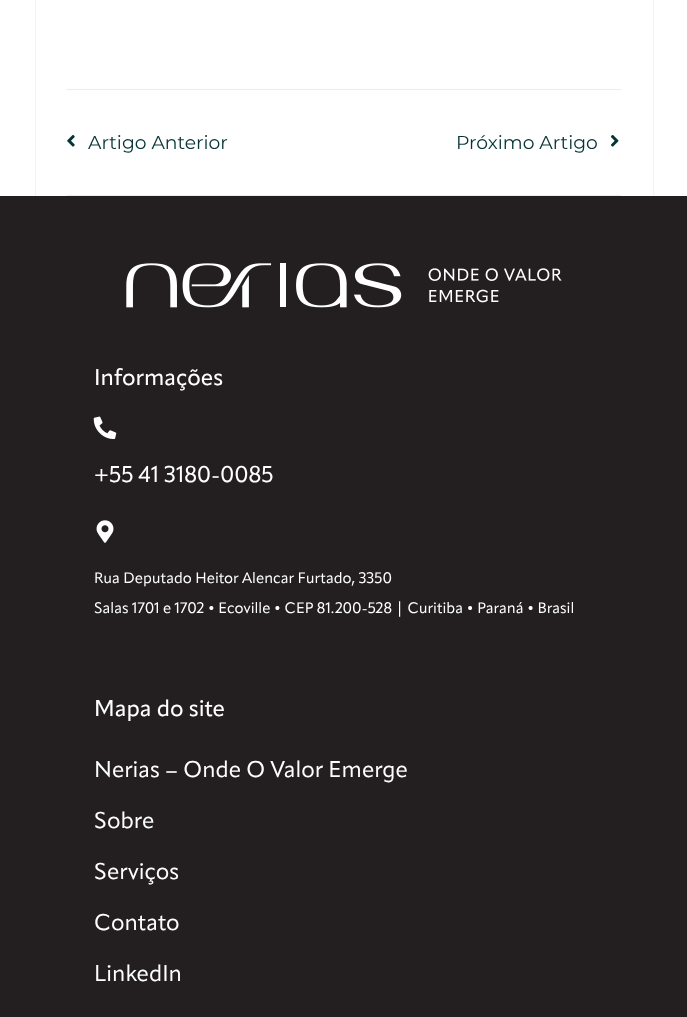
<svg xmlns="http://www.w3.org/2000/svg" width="687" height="1017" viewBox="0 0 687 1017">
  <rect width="100%" height="100%" fill="#ffffff"/>
  <rect x="653" y="0" width="1" height="196" fill="#f2f3f5"/>
  <rect x="35" y="0" width="1" height="196" fill="#f2f3f5"/>
  <rect x="66" y="89" width="555" height="1" fill="#ebecef"/>
  <rect x="66" y="195" width="555" height="1" fill="#ebecef"/>
  <image x="67" y="135" width="8" height="12" href="img1.png"/>
  <text x="88" y="149" font-family="Montserrat" font-size="18.75" fill="#053336">Artigo Anterior</text>
  <text x="456" y="149" font-family="Montserrat" font-size="18.75" fill="#053336">Próximo Artigo</text>
  <image x="611" y="135" width="8" height="12" href="img2.png"/>
  <rect x="0" y="196" width="687" height="821" fill="#231f20"/>
  <image x="126" y="263" width="436" height="45" href="img3.png"/>
  <text x="94" y="385" font-family="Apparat" font-size="22.5" font-weight="500" fill="#ffffff">Informações</text>
  <image x="93" y="416" width="24" height="24" href="img4.png"/>
  <text x="94" y="482" font-family="Apparat" font-size="22.5" fill="#ffffff">+55 41 3180-0085</text>
  <image x="96" y="520" width="18" height="23" href="img5.png"/>
  <text x="94" y="583" font-family="Apparat" font-size="15" fill="#ffffff">Rua Deputado Heitor Alencar Furtado, 3350</text>
  <text x="94" y="613" font-family="Apparat" font-size="15" fill="#ffffff">Salas 1701 e 1702 • Ecoville • CEP 81.200-528 | Curitiba • Paraná • Brasil</text>
  <text x="94" y="716" font-family="Apparat" font-size="22.5" font-weight="500" fill="#ffffff">Mapa do site</text>
  <text x="94" y="777" font-family="Apparat" font-size="22.5" fill="#ffffff">Nerias – Onde O Valor Emerge</text>
  <text x="94" y="828" font-family="Apparat" font-size="22.5" fill="#ffffff">Sobre</text>
  <text x="94" y="879" font-family="Apparat" font-size="22.5" fill="#ffffff">Serviços</text>
  <text x="94" y="930" font-family="Apparat" font-size="22.5" fill="#ffffff">Contato</text>
  <text x="94" y="981" font-family="Apparat" font-size="22.5" fill="#ffffff">LinkedIn</text>
</svg>
